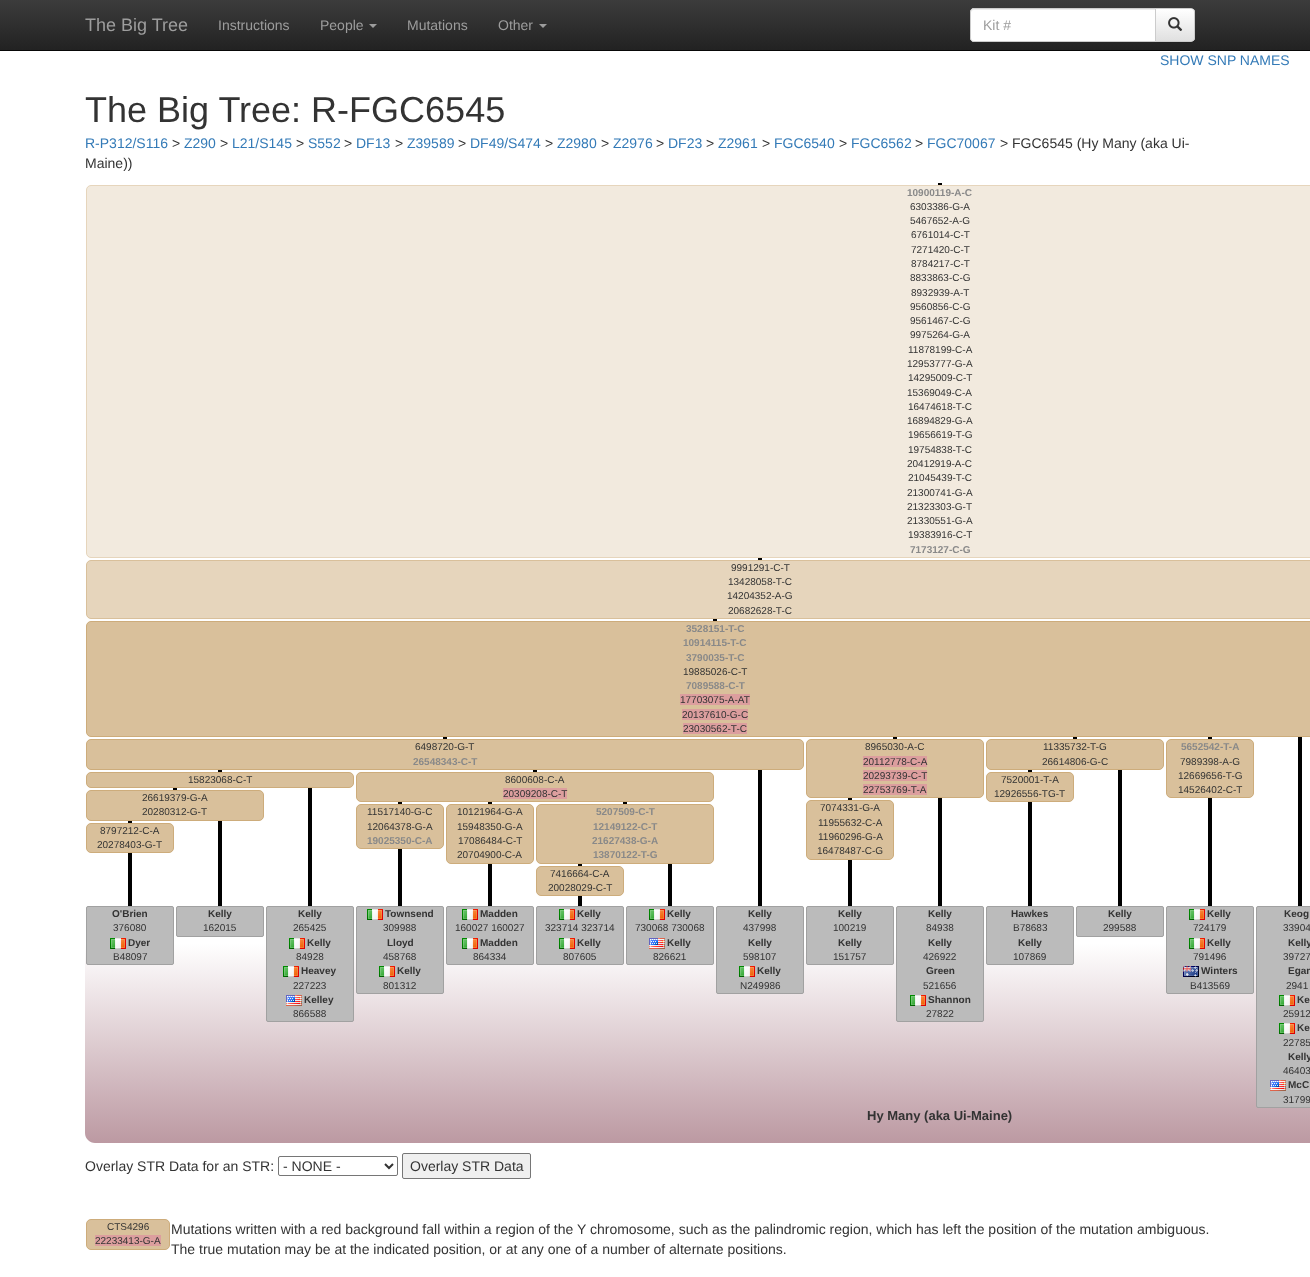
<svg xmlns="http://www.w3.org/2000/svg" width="1310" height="1277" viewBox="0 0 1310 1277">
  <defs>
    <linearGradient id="g1" gradientUnits="userSpaceOnUse" x1="655" y1="0" x2="655" y2="50"><stop offset="0" stop-color="#3c3c3c"/><stop offset="1" stop-color="#222222"/></linearGradient>
    <filter id="blur1" x="-50%" y="-200%" width="200%" height="500%"><feGaussianBlur stdDeviation="0.5"/></filter>
    <clipPath id="clip1"><path d="M1155 8H1191C1193 8 1195 10 1195 12V38C1195 40 1193 42 1191 42H1155Z"/></clipPath>
    <linearGradient id="g2" gradientUnits="userSpaceOnUse" x1="1175" y1="9" x2="1175" y2="41"><stop offset="0" stop-color="#ffffff"/><stop offset="1" stop-color="#e0e0e0"/></linearGradient>
    <linearGradient id="g3" gradientUnits="userSpaceOnUse" x1="940" y1="943" x2="940" y2="1143"><stop offset="0" stop-color="#ffffff"/><stop offset="1" stop-color="#bc99a2"/></linearGradient>
  </defs>
  <rect width="100%" height="100%" fill="#ffffff"/>
  <rect x="0" y="0" width="1310" height="50" fill="url(#g1)"/>
  <rect x="0" y="50" width="1310" height="1" fill="#080808"/>
  <text x="85" y="31" font-family="Liberation Sans" font-size="18" fill="#9d9d9d">The Big Tree</text>
  <text x="218" y="30" font-family="Liberation Sans" font-size="14" fill="#9d9d9d">Instructions</text>
  <text x="320" y="30" font-family="Liberation Sans" font-size="14" fill="#9d9d9d">People</text>
  <path d="M369 24H377L373 28Z" fill="#9d9d9d"/>
  <text x="407" y="30" font-family="Liberation Sans" font-size="14" fill="#9d9d9d">Mutations</text>
  <text x="498" y="30" font-family="Liberation Sans" font-size="14" fill="#9d9d9d">Other</text>
  <path d="M539 24H547L543 28Z" fill="#9d9d9d"/>
  <path d="M974 8H1156V42H974C972 42 970 40 970 38V12C970 10 972 8 974 8Z" fill="#ffffff"/>
  <path d="M974 10H1155V9H973C971 10 971 11 971 13C971 11 972 10 974 10Z" fill="#ececec"/>
  <path d="M974 8.5H1155.5V41.5H974C972 41.5 970.5 40 970.5 38V12C970.5 10 972 8.5 974 8.5Z" fill="none" stroke="#cccccc"/>
  <text x="983" y="30" font-family="Liberation Sans" font-size="14" fill="#9d9d9d">Kit #</text>
  <rect x="1155" y="9" width="40" height="34" rx="4" fill="#000000" fill-opacity="0.07" filter="url(#blur1)"/>
  <g clip-path="url(#clip1)">
    <rect x="1156" y="9" width="39" height="32" fill="url(#g2)"/>
  </g>
  <path d="M1155.5 8.5H1191C1193 8.5 1194.5 10 1194.5 12V38C1194.5 40 1193 41.5 1191 41.5H1155.5Z" fill="none" stroke="#cccccc"/>
  <image x="1168" y="17" width="15" height="14" href="img1.png"/>
  <text x="1160" y="65" font-family="Liberation Sans" font-size="14" fill="#337ab7">SHOW SNP NAMES</text>
  <text x="85" y="122" font-family="Liberation Sans" font-size="36" fill="#333333">The Big Tree: R-FGC6545</text>
  <text x="85" y="148" font-family="Liberation Sans" font-size="14" fill="#337ab7">R-P312/S116</text>
  <text x="172" y="148" font-family="Liberation Sans" font-size="14" fill="#333333">&gt;</text>
  <text x="184" y="148" font-family="Liberation Sans" font-size="14" fill="#337ab7">Z290</text>
  <text x="220" y="148" font-family="Liberation Sans" font-size="14" fill="#333333">&gt;</text>
  <text x="232" y="148" font-family="Liberation Sans" font-size="14" fill="#337ab7">L21/S145</text>
  <text x="296" y="148" font-family="Liberation Sans" font-size="14" fill="#333333">&gt;</text>
  <text x="308" y="148" font-family="Liberation Sans" font-size="14" fill="#337ab7">S552</text>
  <text x="344" y="148" font-family="Liberation Sans" font-size="14" fill="#333333">&gt;</text>
  <text x="356" y="148" font-family="Liberation Sans" font-size="14" fill="#337ab7">DF13</text>
  <text x="395" y="148" font-family="Liberation Sans" font-size="14" fill="#333333">&gt;</text>
  <text x="407" y="148" font-family="Liberation Sans" font-size="14" fill="#337ab7">Z39589</text>
  <text x="458" y="148" font-family="Liberation Sans" font-size="14" fill="#333333">&gt;</text>
  <text x="470" y="148" font-family="Liberation Sans" font-size="14" fill="#337ab7">DF49/S474</text>
  <text x="545" y="148" font-family="Liberation Sans" font-size="14" fill="#333333">&gt;</text>
  <text x="557" y="148" font-family="Liberation Sans" font-size="14" fill="#337ab7">Z2980</text>
  <text x="601" y="148" font-family="Liberation Sans" font-size="14" fill="#333333">&gt;</text>
  <text x="613" y="148" font-family="Liberation Sans" font-size="14" fill="#337ab7">Z2976</text>
  <text x="656" y="148" font-family="Liberation Sans" font-size="14" fill="#333333">&gt;</text>
  <text x="668" y="148" font-family="Liberation Sans" font-size="14" fill="#337ab7">DF23</text>
  <text x="706" y="148" font-family="Liberation Sans" font-size="14" fill="#333333">&gt;</text>
  <text x="718" y="148" font-family="Liberation Sans" font-size="14" fill="#337ab7">Z2961</text>
  <text x="762" y="148" font-family="Liberation Sans" font-size="14" fill="#333333">&gt;</text>
  <text x="774" y="148" font-family="Liberation Sans" font-size="14" fill="#337ab7">FGC6540</text>
  <text x="839" y="148" font-family="Liberation Sans" font-size="14" fill="#333333">&gt;</text>
  <text x="851" y="148" font-family="Liberation Sans" font-size="14" fill="#337ab7">FGC6562</text>
  <text x="915" y="148" font-family="Liberation Sans" font-size="14" fill="#333333">&gt;</text>
  <text x="927" y="148" font-family="Liberation Sans" font-size="14" fill="#337ab7">FGC70067</text>
  <text x="1000" y="148" font-family="Liberation Sans" font-size="14" fill="#333333">&gt; FGC6545 (Hy Many (aka Ui-</text>
  <text x="85" y="168" font-family="Liberation Sans" font-size="14" fill="#333333">Maine))</text>
  <image x="128" y="737" width="1174" height="169" href="img2.png"/>
  <rect x="938" y="183" width="4" height="2" fill="#000000"/>
  <rect x="86.5" y="185.5" width="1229" height="372" rx="4.5" fill="#f2eade" stroke="#e6d5bc"/>
  <text x="907" y="196" font-family="Liberation Sans" font-size="10" font-weight="bold" fill="#898989">10900119-A-C</text>
  <text x="910" y="210" font-family="Liberation Sans" font-size="10" fill="#333333">6303386-G-A</text>
  <text x="910" y="224" font-family="Liberation Sans" font-size="10" fill="#333333">5467652-A-G</text>
  <text x="911" y="238" font-family="Liberation Sans" font-size="10" fill="#333333">6761014-C-T</text>
  <text x="911" y="253" font-family="Liberation Sans" font-size="10" fill="#333333">7271420-C-T</text>
  <text x="911" y="267" font-family="Liberation Sans" font-size="10" fill="#333333">8784217-C-T</text>
  <text x="910" y="281" font-family="Liberation Sans" font-size="10" fill="#333333">8833863-C-G</text>
  <text x="911" y="296" font-family="Liberation Sans" font-size="10" fill="#333333">8932939-A-T</text>
  <text x="910" y="310" font-family="Liberation Sans" font-size="10" fill="#333333">9560856-C-G</text>
  <text x="910" y="324" font-family="Liberation Sans" font-size="10" fill="#333333">9561467-C-G</text>
  <text x="910" y="338" font-family="Liberation Sans" font-size="10" fill="#333333">9975264-G-A</text>
  <text x="908" y="353" font-family="Liberation Sans" font-size="10" fill="#333333">11878199-C-A</text>
  <text x="907" y="367" font-family="Liberation Sans" font-size="10" fill="#333333">12953777-G-A</text>
  <text x="908" y="381" font-family="Liberation Sans" font-size="10" fill="#333333">14295009-C-T</text>
  <text x="907" y="396" font-family="Liberation Sans" font-size="10" fill="#333333">15369049-C-A</text>
  <text x="908" y="410" font-family="Liberation Sans" font-size="10" fill="#333333">16474618-T-C</text>
  <text x="907" y="424" font-family="Liberation Sans" font-size="10" fill="#333333">16894829-G-A</text>
  <text x="908" y="438" font-family="Liberation Sans" font-size="10" fill="#333333">19656619-T-G</text>
  <text x="908" y="453" font-family="Liberation Sans" font-size="10" fill="#333333">19754838-T-C</text>
  <text x="907" y="467" font-family="Liberation Sans" font-size="10" fill="#333333">20412919-A-C</text>
  <text x="908" y="481" font-family="Liberation Sans" font-size="10" fill="#333333">21045439-T-C</text>
  <text x="907" y="496" font-family="Liberation Sans" font-size="10" fill="#333333">21300741-G-A</text>
  <text x="907" y="510" font-family="Liberation Sans" font-size="10" fill="#333333">21323303-G-T</text>
  <text x="907" y="524" font-family="Liberation Sans" font-size="10" fill="#333333">21330551-G-A</text>
  <text x="908" y="538" font-family="Liberation Sans" font-size="10" fill="#333333">19383916-C-T</text>
  <text x="910" y="553" font-family="Liberation Sans" font-size="10" font-weight="bold" fill="#898989">7173127-C-G</text>
  <rect x="758" y="558" width="4" height="2" fill="#000000"/>
  <rect x="86.5" y="560.5" width="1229" height="58" rx="4.5" fill="#e6d5bc" stroke="#d9c09b"/>
  <text x="731" y="571" font-family="Liberation Sans" font-size="10" fill="#333333">9991291-C-T</text>
  <text x="728" y="585" font-family="Liberation Sans" font-size="10" fill="#333333">13428058-T-C</text>
  <text x="727" y="599" font-family="Liberation Sans" font-size="10" fill="#333333">14204352-A-G</text>
  <text x="728" y="614" font-family="Liberation Sans" font-size="10" fill="#333333">20682628-T-C</text>
  <rect x="713" y="619" width="4" height="2" fill="#000000"/>
  <rect x="86.5" y="621.5" width="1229" height="115" rx="4.5" fill="#d9c09b" stroke="#cdac7b"/>
  <text x="686" y="632" font-family="Liberation Sans" font-size="10" font-weight="bold" fill="#898989">3528151-T-C</text>
  <text x="683" y="646" font-family="Liberation Sans" font-size="10" font-weight="bold" fill="#898989">10914115-T-C</text>
  <text x="686" y="661" font-family="Liberation Sans" font-size="10" font-weight="bold" fill="#898989">3790035-T-C</text>
  <text x="683" y="675" font-family="Liberation Sans" font-size="10" fill="#333333">19885026-C-T</text>
  <text x="686" y="689" font-family="Liberation Sans" font-size="10" font-weight="bold" fill="#898989">7089588-C-T</text>
  <rect x="680" y="694" width="70" height="11" fill="#dc9e9e"/>
  <text x="680" y="703" font-family="Liberation Sans" font-size="10" fill="#333333">17703075-A-AT</text>
  <rect x="682" y="709" width="66" height="11" fill="#dc9e9e"/>
  <text x="682" y="718" font-family="Liberation Sans" font-size="10" fill="#333333">20137610-G-C</text>
  <rect x="683" y="723" width="64" height="11" fill="#dc9e9e"/>
  <text x="683" y="732" font-family="Liberation Sans" font-size="10" fill="#333333">23030562-T-C</text>
  <rect x="128" y="737" width="634" height="2" fill="#ffffff"/>
  <rect x="443" y="737" width="4" height="2" fill="#000000"/>
  <rect x="86.5" y="739.5" width="717" height="30" rx="4.5" fill="#d9c09b" stroke="#cdac7b"/>
  <text x="415" y="750" font-family="Liberation Sans" font-size="10" fill="#333333">6498720-G-T</text>
  <text x="413" y="765" font-family="Liberation Sans" font-size="10" font-weight="bold" fill="#898989">26548343-C-T</text>
  <rect x="128" y="770" width="184" height="2" fill="#ffffff"/>
  <rect x="218" y="770" width="4" height="2" fill="#000000"/>
  <rect x="86.5" y="772.5" width="267" height="15" rx="4.5" fill="#d9c09b" stroke="#cdac7b"/>
  <text x="188" y="783" font-family="Liberation Sans" font-size="10" fill="#333333">15823068-C-T</text>
  <rect x="128" y="788" width="94" height="2" fill="#ffffff"/>
  <rect x="173" y="788" width="4" height="2" fill="#000000"/>
  <rect x="86.5" y="790.5" width="177" height="30" rx="4.5" fill="#d9c09b" stroke="#cdac7b"/>
  <text x="142" y="801" font-family="Liberation Sans" font-size="10" fill="#333333">26619379-G-A</text>
  <text x="142" y="815" font-family="Liberation Sans" font-size="10" fill="#333333">20280312-G-T</text>
  <rect x="128" y="821" width="4" height="2" fill="#ffffff"/>
  <rect x="128" y="821" width="4" height="2" fill="#000000"/>
  <rect x="86.5" y="823.5" width="87" height="29" rx="4.5" fill="#d9c09b" stroke="#cdac7b"/>
  <text x="100" y="834" font-family="Liberation Sans" font-size="10" fill="#333333">8797212-C-A</text>
  <text x="97" y="848" font-family="Liberation Sans" font-size="10" fill="#333333">20278403-G-T</text>
  <rect x="398" y="770" width="274" height="2" fill="#ffffff"/>
  <rect x="533" y="770" width="4" height="2" fill="#000000"/>
  <rect x="356.5" y="772.5" width="357" height="29" rx="4.5" fill="#d9c09b" stroke="#cdac7b"/>
  <text x="505" y="783" font-family="Liberation Sans" font-size="10" fill="#333333">8600608-C-A</text>
  <rect x="503" y="788" width="64" height="11" fill="#dc9e9e"/>
  <text x="503" y="797" font-family="Liberation Sans" font-size="10" fill="#333333">20309208-C-T</text>
  <rect x="398" y="802" width="4" height="2" fill="#ffffff"/>
  <rect x="398" y="802" width="4" height="2" fill="#000000"/>
  <rect x="356.5" y="804.5" width="87" height="44" rx="4.5" fill="#d9c09b" stroke="#cdac7b"/>
  <text x="367" y="815" font-family="Liberation Sans" font-size="10" fill="#333333">11517140-G-C</text>
  <text x="367" y="830" font-family="Liberation Sans" font-size="10" fill="#333333">12064378-G-A</text>
  <text x="367" y="844" font-family="Liberation Sans" font-size="10" font-weight="bold" fill="#898989">19025350-C-A</text>
  <rect x="488" y="802" width="4" height="2" fill="#ffffff"/>
  <rect x="488" y="802" width="4" height="2" fill="#000000"/>
  <rect x="446.5" y="804.5" width="87" height="59" rx="4.5" fill="#d9c09b" stroke="#cdac7b"/>
  <text x="457" y="815" font-family="Liberation Sans" font-size="10" fill="#333333">10121964-G-A</text>
  <text x="457" y="830" font-family="Liberation Sans" font-size="10" fill="#333333">15948350-G-A</text>
  <text x="458" y="844" font-family="Liberation Sans" font-size="10" fill="#333333">17086484-C-T</text>
  <text x="457" y="858" font-family="Liberation Sans" font-size="10" fill="#333333">20704900-C-A</text>
  <rect x="578" y="802" width="94" height="2" fill="#ffffff"/>
  <rect x="623" y="802" width="4" height="2" fill="#000000"/>
  <rect x="536.5" y="804.5" width="177" height="59" rx="4.5" fill="#d9c09b" stroke="#cdac7b"/>
  <text x="596" y="815" font-family="Liberation Sans" font-size="10" font-weight="bold" fill="#898989">5207509-C-T</text>
  <text x="593" y="830" font-family="Liberation Sans" font-size="10" font-weight="bold" fill="#898989">12149122-C-T</text>
  <text x="592" y="844" font-family="Liberation Sans" font-size="10" font-weight="bold" fill="#898989">21627438-G-A</text>
  <text x="593" y="858" font-family="Liberation Sans" font-size="10" font-weight="bold" fill="#898989">13870122-T-G</text>
  <rect x="578" y="864" width="4" height="2" fill="#ffffff"/>
  <rect x="578" y="864" width="4" height="2" fill="#000000"/>
  <rect x="536.5" y="866.5" width="87" height="29" rx="4.5" fill="#d9c09b" stroke="#cdac7b"/>
  <text x="550" y="877" font-family="Liberation Sans" font-size="10" fill="#333333">7416664-C-A</text>
  <text x="548" y="891" font-family="Liberation Sans" font-size="10" fill="#333333">20028029-C-T</text>
  <rect x="848" y="737" width="94" height="2" fill="#ffffff"/>
  <rect x="893" y="737" width="4" height="2" fill="#000000"/>
  <rect x="806.5" y="739.5" width="177" height="58" rx="4.5" fill="#d9c09b" stroke="#cdac7b"/>
  <text x="865" y="750" font-family="Liberation Sans" font-size="10" fill="#333333">8965030-A-C</text>
  <rect x="863" y="756" width="64" height="11" fill="#dc9e9e"/>
  <text x="863" y="765" font-family="Liberation Sans" font-size="10" fill="#333333">20112778-C-A</text>
  <rect x="863" y="770" width="64" height="11" fill="#dc9e9e"/>
  <text x="863" y="779" font-family="Liberation Sans" font-size="10" fill="#333333">20293739-C-T</text>
  <rect x="863" y="784" width="64" height="11" fill="#dc9e9e"/>
  <text x="863" y="793" font-family="Liberation Sans" font-size="10" fill="#333333">22753769-T-A</text>
  <rect x="848" y="798" width="4" height="2" fill="#ffffff"/>
  <rect x="848" y="798" width="4" height="2" fill="#000000"/>
  <rect x="806.5" y="800.5" width="87" height="59" rx="4.5" fill="#d9c09b" stroke="#cdac7b"/>
  <text x="820" y="811" font-family="Liberation Sans" font-size="10" fill="#333333">7074331-G-A</text>
  <text x="818" y="826" font-family="Liberation Sans" font-size="10" fill="#333333">11955632-C-A</text>
  <text x="818" y="840" font-family="Liberation Sans" font-size="10" fill="#333333">11960296-G-A</text>
  <text x="817" y="854" font-family="Liberation Sans" font-size="10" fill="#333333">16478487-C-G</text>
  <rect x="1028" y="737" width="94" height="2" fill="#ffffff"/>
  <rect x="1073" y="737" width="4" height="2" fill="#000000"/>
  <rect x="986.5" y="739.5" width="177" height="30" rx="4.5" fill="#d9c09b" stroke="#cdac7b"/>
  <text x="1043" y="750" font-family="Liberation Sans" font-size="10" fill="#333333">11335732-T-G</text>
  <text x="1042" y="765" font-family="Liberation Sans" font-size="10" fill="#333333">26614806-G-C</text>
  <rect x="1028" y="770" width="4" height="2" fill="#ffffff"/>
  <rect x="1028" y="770" width="4" height="2" fill="#000000"/>
  <rect x="986.5" y="772.5" width="87" height="29" rx="4.5" fill="#d9c09b" stroke="#cdac7b"/>
  <text x="1001" y="783" font-family="Liberation Sans" font-size="10" fill="#333333">7520001-T-A</text>
  <text x="994" y="797" font-family="Liberation Sans" font-size="10" fill="#333333">12926556-TG-T</text>
  <rect x="1208" y="737" width="4" height="2" fill="#ffffff"/>
  <rect x="1208" y="737" width="4" height="2" fill="#000000"/>
  <rect x="1166.5" y="739.5" width="87" height="58" rx="4.5" fill="#d9c09b" stroke="#cdac7b"/>
  <text x="1181" y="750" font-family="Liberation Sans" font-size="10" font-weight="bold" fill="#898989">5652542-T-A</text>
  <text x="1180" y="765" font-family="Liberation Sans" font-size="10" fill="#333333">7989398-A-G</text>
  <text x="1178" y="779" font-family="Liberation Sans" font-size="10" fill="#333333">12669656-T-G</text>
  <text x="1178" y="793" font-family="Liberation Sans" font-size="10" fill="#333333">14526402-C-T</text>
  <path d="M85 943H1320V1133C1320 1138.5 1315.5 1143 1310 1143H95C89.5 1143 85 1138.5 85 1133Z" fill="url(#g3)"/>
  <rect x="86.5" y="906.5" width="87" height="58" rx="1.5" fill="#bbbbbb" stroke="#a1a1a1"/>
  <text x="112" y="917" font-family="Liberation Sans" font-size="10" font-weight="bold" fill="#333333">O'Brien</text>
  <text x="113" y="931" font-family="Liberation Sans" font-size="10" fill="#333333">376080</text>
  <image x="110" y="938" width="16" height="11" href="img3.png"/>
  <text x="128" y="946" font-family="Liberation Sans" font-size="10" font-weight="bold" fill="#333333">Dyer</text>
  <text x="113" y="960" font-family="Liberation Sans" font-size="10" fill="#333333">B48097</text>
  <rect x="176.5" y="906.5" width="87" height="30" rx="1.5" fill="#bbbbbb" stroke="#a1a1a1"/>
  <text x="208" y="917" font-family="Liberation Sans" font-size="10" font-weight="bold" fill="#333333">Kelly</text>
  <text x="203" y="931" font-family="Liberation Sans" font-size="10" fill="#333333">162015</text>
  <rect x="266.5" y="906.5" width="87" height="115" rx="1.5" fill="#bbbbbb" stroke="#a1a1a1"/>
  <text x="298" y="917" font-family="Liberation Sans" font-size="10" font-weight="bold" fill="#333333">Kelly</text>
  <text x="293" y="931" font-family="Liberation Sans" font-size="10" fill="#333333">265425</text>
  <image x="289" y="938" width="16" height="11" href="img3.png"/>
  <text x="307" y="946" font-family="Liberation Sans" font-size="10" font-weight="bold" fill="#333333">Kelly</text>
  <text x="296" y="960" font-family="Liberation Sans" font-size="10" fill="#333333">84928</text>
  <image x="283" y="966" width="16" height="11" href="img3.png"/>
  <text x="301" y="974" font-family="Liberation Sans" font-size="10" font-weight="bold" fill="#333333">Heavey</text>
  <text x="293" y="989" font-family="Liberation Sans" font-size="10" fill="#333333">227223</text>
  <image x="286" y="995" width="16" height="11" href="img4.png"/>
  <text x="304" y="1003" font-family="Liberation Sans" font-size="10" font-weight="bold" fill="#333333">Kelley</text>
  <text x="293" y="1017" font-family="Liberation Sans" font-size="10" fill="#333333">866588</text>
  <rect x="356.5" y="906.5" width="87" height="87" rx="1.5" fill="#bbbbbb" stroke="#a1a1a1"/>
  <image x="367" y="909" width="16" height="11" href="img3.png"/>
  <text x="385" y="917" font-family="Liberation Sans" font-size="10" font-weight="bold" fill="#333333">Townsend</text>
  <text x="383" y="931" font-family="Liberation Sans" font-size="10" fill="#333333">309988</text>
  <text x="387" y="946" font-family="Liberation Sans" font-size="10" font-weight="bold" fill="#333333">Lloyd</text>
  <text x="383" y="960" font-family="Liberation Sans" font-size="10" fill="#333333">458768</text>
  <image x="379" y="966" width="16" height="11" href="img3.png"/>
  <text x="397" y="974" font-family="Liberation Sans" font-size="10" font-weight="bold" fill="#333333">Kelly</text>
  <text x="383" y="989" font-family="Liberation Sans" font-size="10" fill="#333333">801312</text>
  <rect x="446.5" y="906.5" width="87" height="58" rx="1.5" fill="#bbbbbb" stroke="#a1a1a1"/>
  <image x="462" y="909" width="16" height="11" href="img3.png"/>
  <text x="480" y="917" font-family="Liberation Sans" font-size="10" font-weight="bold" fill="#333333">Madden</text>
  <text x="455" y="931" font-family="Liberation Sans" font-size="10" fill="#333333">160027 160027</text>
  <image x="462" y="938" width="16" height="11" href="img3.png"/>
  <text x="480" y="946" font-family="Liberation Sans" font-size="10" font-weight="bold" fill="#333333">Madden</text>
  <text x="473" y="960" font-family="Liberation Sans" font-size="10" fill="#333333">864334</text>
  <rect x="536.5" y="906.5" width="87" height="58" rx="1.5" fill="#bbbbbb" stroke="#a1a1a1"/>
  <image x="559" y="909" width="16" height="11" href="img3.png"/>
  <text x="577" y="917" font-family="Liberation Sans" font-size="10" font-weight="bold" fill="#333333">Kelly</text>
  <text x="545" y="931" font-family="Liberation Sans" font-size="10" fill="#333333">323714 323714</text>
  <image x="559" y="938" width="16" height="11" href="img3.png"/>
  <text x="577" y="946" font-family="Liberation Sans" font-size="10" font-weight="bold" fill="#333333">Kelly</text>
  <text x="563" y="960" font-family="Liberation Sans" font-size="10" fill="#333333">807605</text>
  <rect x="626.5" y="906.5" width="87" height="58" rx="1.5" fill="#bbbbbb" stroke="#a1a1a1"/>
  <image x="649" y="909" width="16" height="11" href="img3.png"/>
  <text x="667" y="917" font-family="Liberation Sans" font-size="10" font-weight="bold" fill="#333333">Kelly</text>
  <text x="635" y="931" font-family="Liberation Sans" font-size="10" fill="#333333">730068 730068</text>
  <image x="649" y="938" width="16" height="11" href="img4.png"/>
  <text x="667" y="946" font-family="Liberation Sans" font-size="10" font-weight="bold" fill="#333333">Kelly</text>
  <text x="653" y="960" font-family="Liberation Sans" font-size="10" fill="#333333">826621</text>
  <rect x="716.5" y="906.5" width="87" height="87" rx="1.5" fill="#bbbbbb" stroke="#a1a1a1"/>
  <text x="748" y="917" font-family="Liberation Sans" font-size="10" font-weight="bold" fill="#333333">Kelly</text>
  <text x="743" y="931" font-family="Liberation Sans" font-size="10" fill="#333333">437998</text>
  <text x="748" y="946" font-family="Liberation Sans" font-size="10" font-weight="bold" fill="#333333">Kelly</text>
  <text x="743" y="960" font-family="Liberation Sans" font-size="10" fill="#333333">598107</text>
  <image x="739" y="966" width="16" height="11" href="img3.png"/>
  <text x="757" y="974" font-family="Liberation Sans" font-size="10" font-weight="bold" fill="#333333">Kelly</text>
  <text x="740" y="989" font-family="Liberation Sans" font-size="10" fill="#333333">N249986</text>
  <rect x="806.5" y="906.5" width="87" height="58" rx="1.5" fill="#bbbbbb" stroke="#a1a1a1"/>
  <text x="838" y="917" font-family="Liberation Sans" font-size="10" font-weight="bold" fill="#333333">Kelly</text>
  <text x="833" y="931" font-family="Liberation Sans" font-size="10" fill="#333333">100219</text>
  <text x="838" y="946" font-family="Liberation Sans" font-size="10" font-weight="bold" fill="#333333">Kelly</text>
  <text x="833" y="960" font-family="Liberation Sans" font-size="10" fill="#333333">151757</text>
  <rect x="896.5" y="906.5" width="87" height="115" rx="1.5" fill="#bbbbbb" stroke="#a1a1a1"/>
  <text x="928" y="917" font-family="Liberation Sans" font-size="10" font-weight="bold" fill="#333333">Kelly</text>
  <text x="926" y="931" font-family="Liberation Sans" font-size="10" fill="#333333">84938</text>
  <text x="928" y="946" font-family="Liberation Sans" font-size="10" font-weight="bold" fill="#333333">Kelly</text>
  <text x="923" y="960" font-family="Liberation Sans" font-size="10" fill="#333333">426922</text>
  <text x="926" y="974" font-family="Liberation Sans" font-size="10" font-weight="bold" fill="#333333">Green</text>
  <text x="923" y="989" font-family="Liberation Sans" font-size="10" fill="#333333">521656</text>
  <image x="910" y="995" width="16" height="11" href="img3.png"/>
  <text x="928" y="1003" font-family="Liberation Sans" font-size="10" font-weight="bold" fill="#333333">Shannon</text>
  <text x="926" y="1017" font-family="Liberation Sans" font-size="10" fill="#333333">27822</text>
  <rect x="986.5" y="906.5" width="87" height="58" rx="1.5" fill="#bbbbbb" stroke="#a1a1a1"/>
  <text x="1011" y="917" font-family="Liberation Sans" font-size="10" font-weight="bold" fill="#333333">Hawkes</text>
  <text x="1013" y="931" font-family="Liberation Sans" font-size="10" fill="#333333">B78683</text>
  <text x="1018" y="946" font-family="Liberation Sans" font-size="10" font-weight="bold" fill="#333333">Kelly</text>
  <text x="1013" y="960" font-family="Liberation Sans" font-size="10" fill="#333333">107869</text>
  <rect x="1076.5" y="906.5" width="87" height="30" rx="1.5" fill="#bbbbbb" stroke="#a1a1a1"/>
  <text x="1108" y="917" font-family="Liberation Sans" font-size="10" font-weight="bold" fill="#333333">Kelly</text>
  <text x="1103" y="931" font-family="Liberation Sans" font-size="10" fill="#333333">299588</text>
  <rect x="1166.5" y="906.5" width="87" height="87" rx="1.5" fill="#bbbbbb" stroke="#a1a1a1"/>
  <image x="1189" y="909" width="16" height="11" href="img3.png"/>
  <text x="1207" y="917" font-family="Liberation Sans" font-size="10" font-weight="bold" fill="#333333">Kelly</text>
  <text x="1193" y="931" font-family="Liberation Sans" font-size="10" fill="#333333">724179</text>
  <image x="1189" y="938" width="16" height="11" href="img3.png"/>
  <text x="1207" y="946" font-family="Liberation Sans" font-size="10" font-weight="bold" fill="#333333">Kelly</text>
  <text x="1193" y="960" font-family="Liberation Sans" font-size="10" fill="#333333">791496</text>
  <image x="1183" y="966" width="16" height="11" href="img5.png"/>
  <text x="1201" y="974" font-family="Liberation Sans" font-size="10" font-weight="bold" fill="#333333">Winters</text>
  <text x="1190" y="989" font-family="Liberation Sans" font-size="10" fill="#333333">B413569</text>
  <rect x="1256.5" y="906.5" width="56" height="201" rx="1.5" fill="#bbbbbb" stroke="#a1a1a1"/>
  <text x="1284" y="917" font-family="Liberation Sans" font-size="10" font-weight="bold" fill="#333333">Keog</text>
  <text x="1283" y="931" font-family="Liberation Sans" font-size="10" fill="#333333">33904</text>
  <text x="1288" y="946" font-family="Liberation Sans" font-size="10" font-weight="bold" fill="#333333">Kelly</text>
  <text x="1283" y="960" font-family="Liberation Sans" font-size="10" fill="#333333">39727</text>
  <text x="1288" y="974" font-family="Liberation Sans" font-size="10" font-weight="bold" fill="#333333">Egan</text>
  <text x="1286" y="989" font-family="Liberation Sans" font-size="10" fill="#333333">2941</text>
  <image x="1279" y="995" width="16" height="11" href="img3.png"/>
  <text x="1297" y="1003" font-family="Liberation Sans" font-size="10" font-weight="bold" fill="#333333">Ke</text>
  <text x="1283" y="1017" font-family="Liberation Sans" font-size="10" fill="#333333">25912</text>
  <image x="1279" y="1023" width="16" height="11" href="img3.png"/>
  <text x="1297" y="1031" font-family="Liberation Sans" font-size="10" font-weight="bold" fill="#333333">Ke</text>
  <text x="1283" y="1046" font-family="Liberation Sans" font-size="10" fill="#333333">22785</text>
  <text x="1288" y="1060" font-family="Liberation Sans" font-size="10" font-weight="bold" fill="#333333">Kelly</text>
  <text x="1283" y="1074" font-family="Liberation Sans" font-size="10" fill="#333333">46403</text>
  <image x="1270" y="1080" width="16" height="11" href="img4.png"/>
  <text x="1288" y="1088" font-family="Liberation Sans" font-size="10" font-weight="bold" fill="#333333">McC</text>
  <text x="1283" y="1103" font-family="Liberation Sans" font-size="10" fill="#333333">31799</text>
  <text x="867" y="1120" font-family="Liberation Sans" font-size="13" font-weight="bold" fill="#333333">Hy Many (aka Ui-Maine)</text>
  <text x="85" y="1171" font-family="Liberation Sans" font-size="14" fill="#333333">Overlay STR Data for an STR:</text>
  <rect x="278.5" y="1156.5" width="119" height="19" rx="1.5" fill="none" stroke="#767676"/>
  <path d="M385 1164L389 1168L393 1164" fill="none" stroke="#333333" stroke-width="2"/>
  <text x="283" y="1171" font-family="Liberation Sans" font-size="14" fill="#333333">- NONE -</text>
  <rect x="402.5" y="1153.5" width="128" height="25" rx="1.5" fill="#efefef" stroke="#767676"/>
  <text x="410" y="1171" font-family="Liberation Sans" font-size="14" fill="#333333">Overlay STR Data</text>
  <rect x="86.5" y="1219.5" width="83" height="30" rx="4.5" fill="#d9c09b" stroke="#cdac7b"/>
  <text x="107" y="1230" font-family="Liberation Sans" font-size="10" fill="#333333">CTS4296</text>
  <rect x="95" y="1235" width="66" height="11" fill="#dc9e9e"/>
  <text x="95" y="1244" font-family="Liberation Sans" font-size="10" fill="#333333">22233413-G-A</text>
  <text x="171" y="1234" font-family="Liberation Sans" font-size="14" fill="#333333">Mutations written with a red background fall within a region of the Y chromosome, such as the palindromic region, which has left the position of the mutation ambiguous.</text>
  <text x="171" y="1254" font-family="Liberation Sans" font-size="14" fill="#333333">The true mutation may be at the indicated position, or at any one of a number of alternate positions.</text>
</svg>
